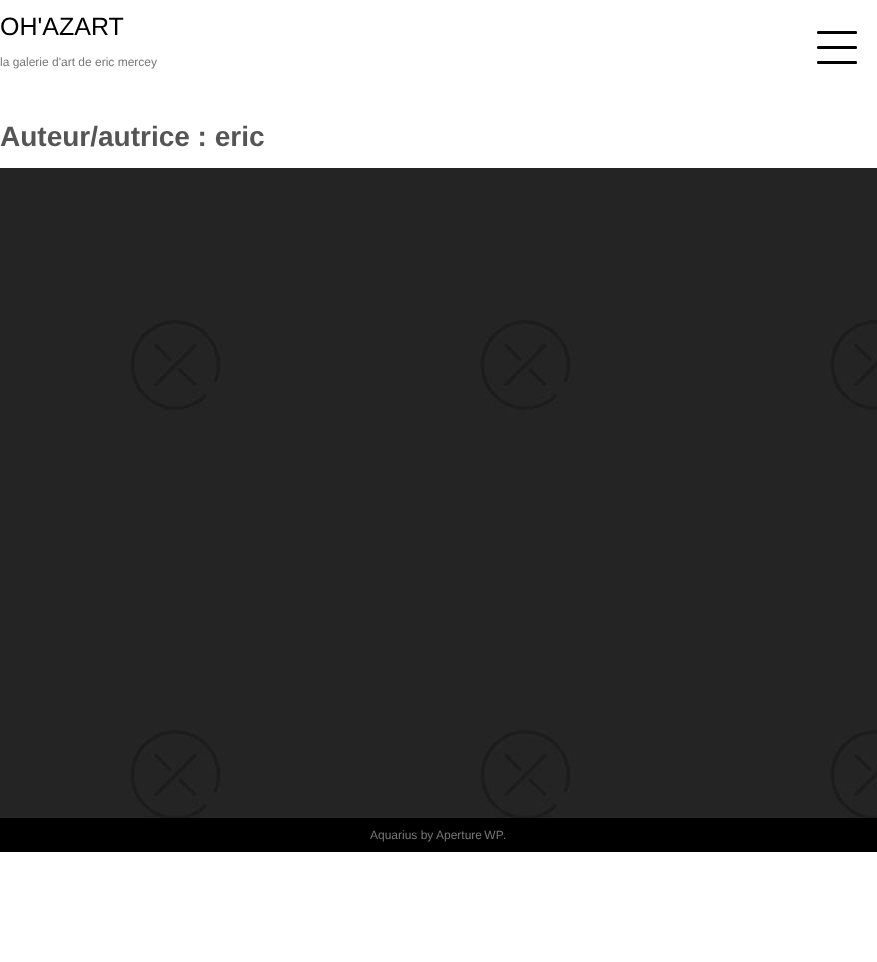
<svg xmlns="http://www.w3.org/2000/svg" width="877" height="962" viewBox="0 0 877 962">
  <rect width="100%" height="100%" fill="#ffffff"/>
  <text x="0" y="35" font-family="Liberation Sans" font-size="25" fill="#000000">OH'AZART</text>
  <text x="0" y="66" font-family="Liberation Sans" font-size="12" fill="#777777">la galerie d'art de eric mercey</text>
  <path d="M818.5 31H837V34H818.5C817.5 34 817 33.5 817 32.5C817 31.5 817.5 31 818.5 31Z" fill="#000000"/>
  <path d="M837 31H855.5C856.5 31 857 31.5 857 32.5C857 33.5 856.5 34 855.5 34H837Z" fill="#000000"/>
  <path d="M818.5 46H837V49H818.5C817.5 49 817 48.5 817 47.5C817 46.5 817.5 46 818.5 46Z" fill="#000000"/>
  <path d="M837 46H855.5C856.5 46 857 46.5 857 47.5C857 48.5 856.5 49 855.5 49H837Z" fill="#000000"/>
  <path d="M818.5 61H837V64H818.5C817.5 64 817 63.5 817 62.5C817 61.5 817.5 61 818.5 61Z" fill="#000000"/>
  <path d="M837 61H855.5C856.5 61 857 61.5 857 62.5C857 63.5 856.5 64 855.5 64H837Z" fill="#000000"/>
  <text x="0" y="146" font-family="Liberation Sans" font-size="28" font-weight="bold" fill="#555555">Auteur/autrice : eric</text>
  <image x="0" y="168" width="877" height="650" href="img1.png"/>
  <rect x="0" y="818" width="877" height="34" fill="#000000"/>
  <text x="370" y="839" font-family="Liberation Sans" font-size="12" fill="#777777">Aquarius by</text>
  <text x="436" y="839" word-spacing="-1" font-family="Liberation Sans" font-size="12" fill="#777777">Aperture WP</text>
  <text x="503" y="839" font-family="Liberation Sans" font-size="12" fill="#777777">.</text>
</svg>
